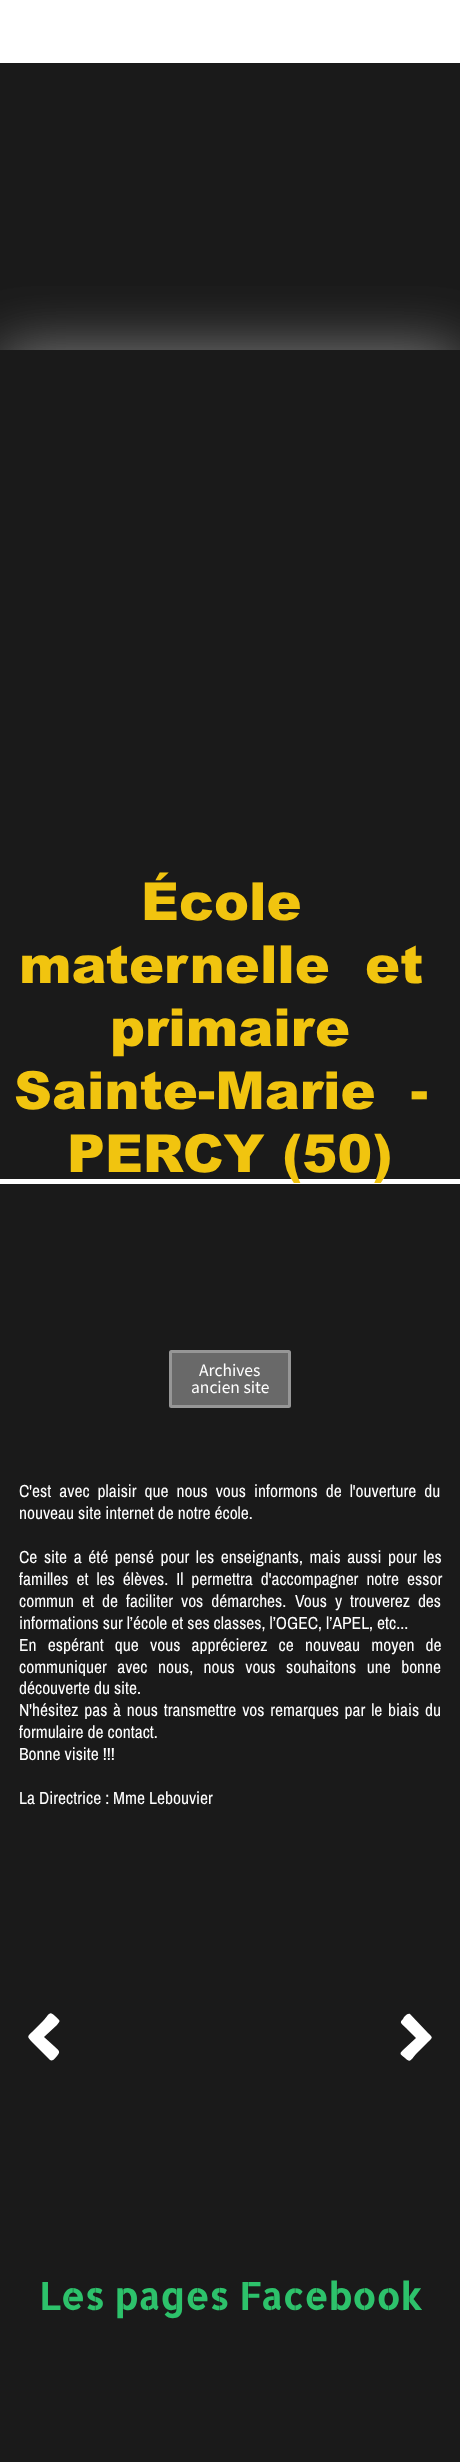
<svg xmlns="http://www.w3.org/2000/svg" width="460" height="2462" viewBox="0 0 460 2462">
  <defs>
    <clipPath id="clip1"><rect x="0" y="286" width="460" height="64"/></clipPath>
    <filter id="blur1" x="-50%" y="-200%" width="200%" height="500%"><feGaussianBlur stdDeviation="31"/></filter>
  </defs>
  <rect width="100%" height="100%" fill="#1a1a1a"/>
  <rect x="0" y="0" width="460" height="63" fill="#ffffff"/>
  <g clip-path="url(#clip1)">
    <rect x="0" y="350" width="460" height="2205" fill="#828282" filter="url(#blur1)"/>
  </g>
  <rect x="0" y="1179" width="460" height="5" fill="#ffffff"/>
  <text x="141" y="920" font-family="Arial" font-size="52.5" font-weight="900" fill="#f1c40f">École</text>
  <text x="19" y="983" font-family="Arial" font-size="52.5" font-weight="900" fill="#f1c40f" xml:space="preserve">maternelle  et</text>
  <text x="110" y="1046" font-family="Arial" font-size="52.5" font-weight="900" fill="#f1c40f">primaire</text>
  <text x="14" y="1109" font-family="Arial" font-size="52.5" font-weight="900" fill="#f1c40f" xml:space="preserve">Sainte-Marie  -</text>
  <text x="67" y="1172" font-family="Arial" font-size="52.5" font-weight="900" fill="#f1c40f">PERCY (50)</text>
  <rect x="169" y="1350" width="122" height="58" rx="2.5" fill="#696969"/>
  <rect x="170.5" y="1351.5" width="119" height="55" rx="1" fill="none" stroke="#ffffff" stroke-opacity="0.3" stroke-width="3"/>
  <text x="199" y="1376" font-family="Source Sans Pro" font-size="17.5" fill="#ffffff">Archives</text>
  <text x="191" y="1393" font-family="Source Sans Pro" font-size="17.5" fill="#ffffff">ancien site</text>
  <text x="19" y="1497" word-spacing="4" font-family="Archivo Narrow" font-size="17.5" fill="#ffffff">C'est avec plaisir que nous vous informons de l'ouverture du</text>
  <text x="19" y="1519" font-family="Archivo Narrow" font-size="17.5" fill="#ffffff">nouveau site internet de notre école.</text>
  <text x="19" y="1563" word-spacing="2.6" font-family="Archivo Narrow" font-size="17.5" fill="#ffffff">Ce site a été pensé pour les enseignants, mais aussi pour les</text>
  <text x="19" y="1585" word-spacing="4" font-family="Archivo Narrow" font-size="17.5" fill="#ffffff">familles et les élèves. Il permettra d'accompagner notre essor</text>
  <text x="19" y="1607" word-spacing="4" font-family="Archivo Narrow" font-size="17.5" fill="#ffffff">commun et de faciliter vos démarches.</text>
  <text x="295" y="1607" word-spacing="4" font-family="Archivo Narrow" font-size="17.5" fill="#ffffff">Vous y trouverez des</text>
  <text x="19" y="1629" font-family="Archivo Narrow" font-size="17.5" fill="#ffffff">informations sur l’école et ses classes, l’OGEC, l’APEL, etc...</text>
  <text x="19" y="1651" word-spacing="7.25" font-family="Archivo Narrow" font-size="17.5" fill="#ffffff">En espérant que vous apprécierez ce nouveau moyen de</text>
  <text x="19" y="1673" word-spacing="6.5" font-family="Archivo Narrow" font-size="17.5" fill="#ffffff">communiquer avec nous, nous vous souhaitons une bonne</text>
  <text x="19" y="1694" font-family="Archivo Narrow" font-size="17.5" fill="#ffffff">découverte du site.</text>
  <text x="19" y="1716" word-spacing="1.8" font-family="Archivo Narrow" font-size="17.5" fill="#ffffff">N'hésitez pas à nous transmettre vos remarques par le biais du</text>
  <text x="19" y="1738" font-family="Archivo Narrow" font-size="17.5" fill="#ffffff">formulaire de contact.</text>
  <text x="19" y="1760" font-family="Archivo Narrow" font-size="17.5" fill="#ffffff">Bonne visite !!!</text>
  <text x="19" y="1804" font-family="Archivo Narrow" font-size="17.5" fill="#ffffff">La Directrice : Mme Lebouvier</text>
  <path d="M50 2060C53 2062 56 2057 57 2056C61 2051 59 2051 54 2046L44 2037L57 2025C61 2020 60 2021 55 2016C49 2010 49 2015 43 2021L32 2032C27 2037 27 2036 32 2042Z" fill="#ffffff"/>
  <path d="M410 2014C407 2013 404 2017 403 2019C399 2023 401 2023 406 2028L416 2038L403 2050C399 2054 400 2054 405 2058C411 2064 411 2059 417 2053L428 2042C433 2037 433 2038 428 2033Z" fill="#ffffff"/>
  <text x="39" y="2310" font-family="Allerta Stencil" font-size="37.5" font-weight="bold" fill="#2dc26b">Les pages Facebook</text>
</svg>
